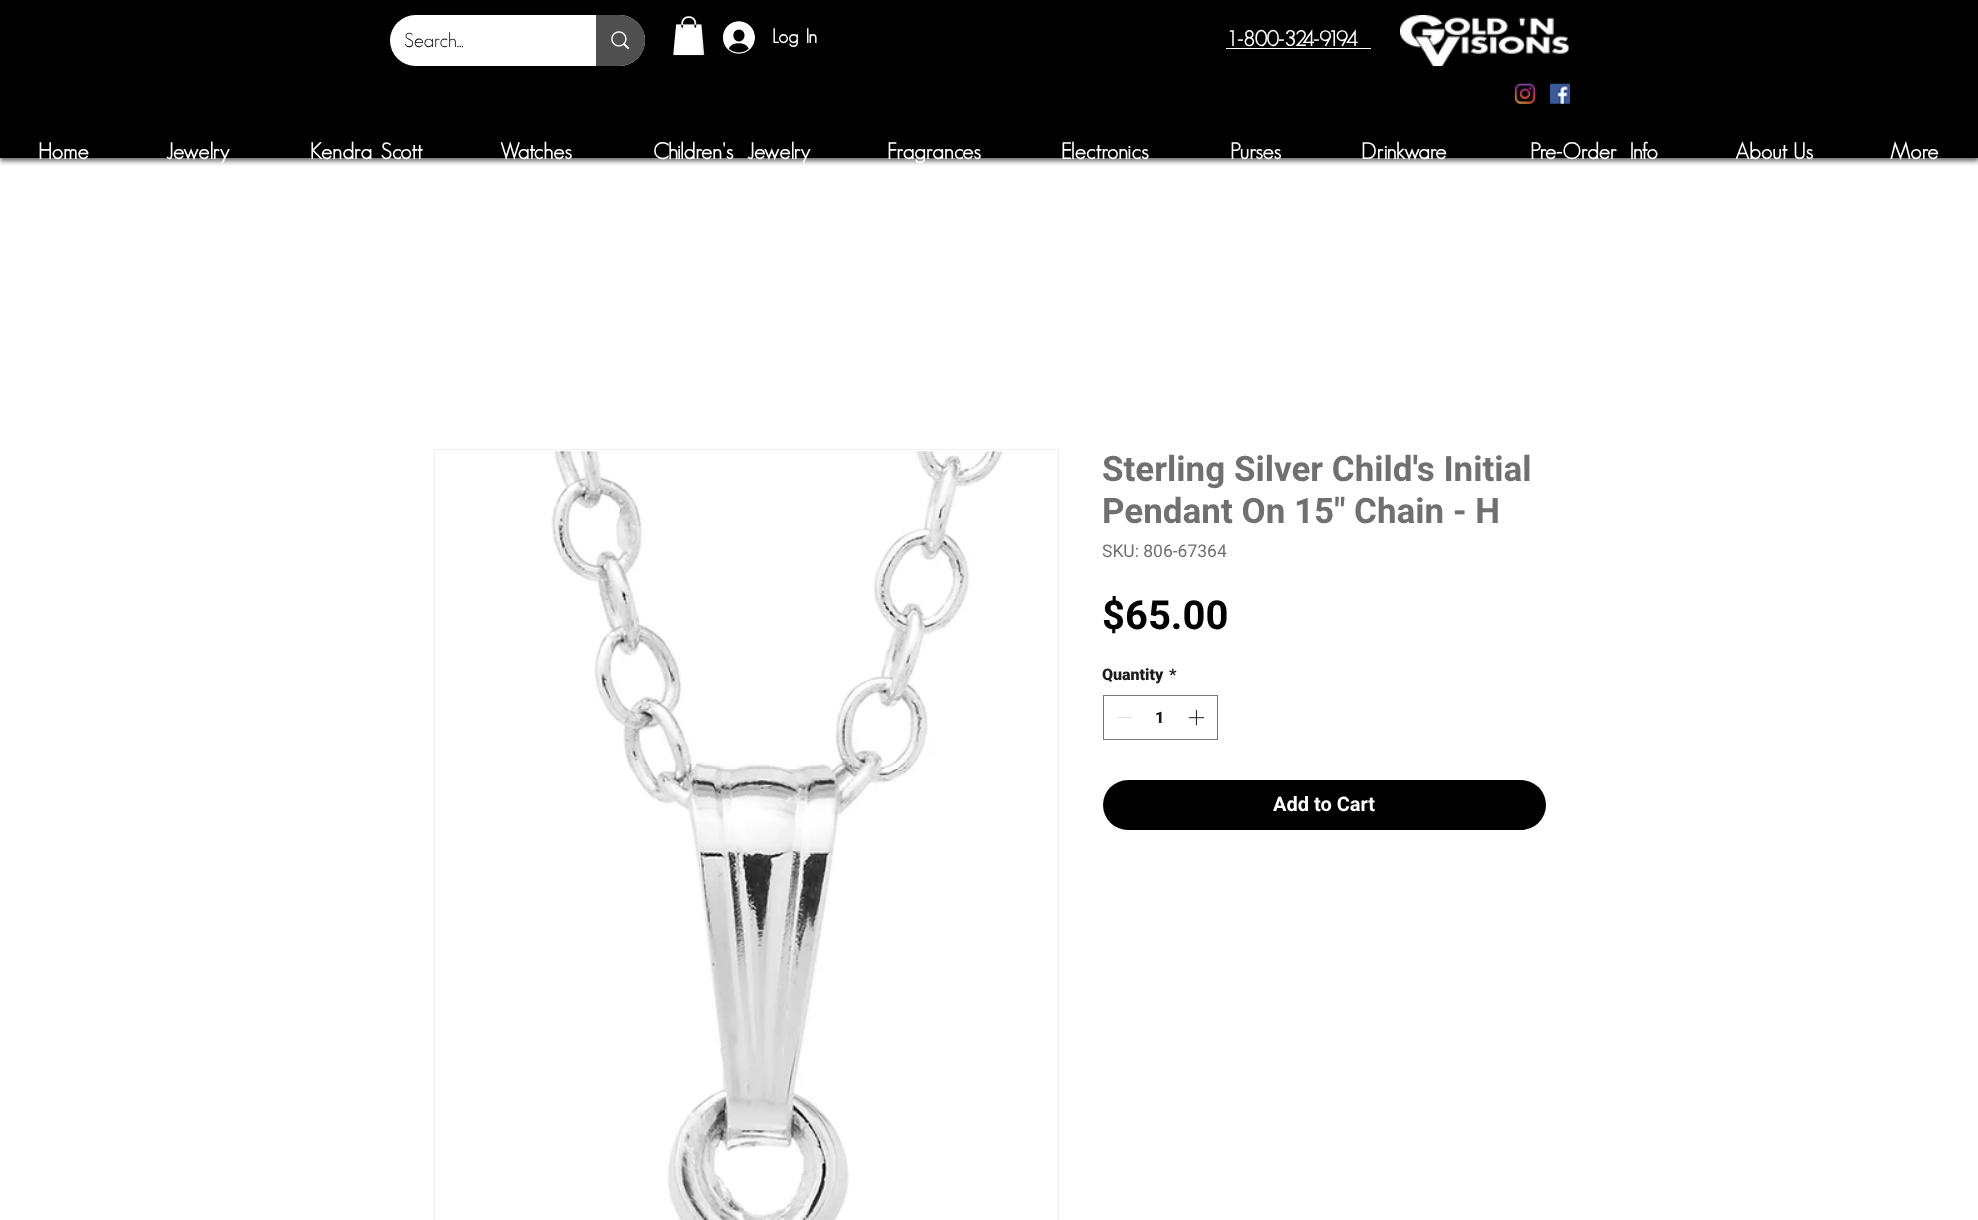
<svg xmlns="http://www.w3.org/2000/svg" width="1978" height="1220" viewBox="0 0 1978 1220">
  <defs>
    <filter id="blur1" x="-50%" y="-200%" width="200%" height="500%"><feGaussianBlur stdDeviation="2.5"/></filter>
    <clipPath id="clip1"><path d="M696 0H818V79H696ZM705 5H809V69H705Z" clip-rule="evenodd"/></clipPath>
  </defs>
  <rect width="100%" height="100%" fill="#ffffff"/>
  <rect x="0" y="4" width="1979" height="157" fill="#000000" fill-opacity="0.6" filter="url(#blur1)"/>
  <rect x="0" y="0" width="1978" height="158" fill="#000000"/>
  <rect x="390" y="15" width="255" height="51" rx="25.5" fill="#ffffff"/>
  <text x="404" y="47" font-family="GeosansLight" font-size="20" font-weight="300" fill="#000000">Search...</text>
  <path d="M596 15H619.5C633.5 15 645 26.5 645 40.5C645 54.5 633.5 66 619.5 66H596Z" fill="#4f4f4f"/>
  <image x="611" y="31" width="19" height="19" href="img1.png"/>
  <image x="673" y="16" width="32" height="40" href="img2.png"/>
  <g clip-path="url(#clip1)">
    <rect x="705" y="6" width="104" height="64" fill="#000000" fill-opacity="0.6" filter="url(#blur1)"/>
  </g>
  <image x="723" y="21" width="32" height="33" href="img3.png"/>
  <text x="772" y="43" word-spacing="2" font-family="GeosansLight" font-size="20" font-weight="bold" fill="#ffffff">Log In</text>
  <text x="1226" y="46" font-family="GeosansLight" font-size="21.25" font-weight="bold" fill="#ffffff">1-800-324-9194</text>
  <rect x="1226" y="48" width="145" height="1" fill="#ffffff"/>
  <image x="1400" y="15" width="169" height="52" href="img4.png"/>
  <image x="1515" y="83" width="20" height="21" href="img5.png"/>
  <image x="1550" y="83" width="20" height="21" href="img6.png"/>
  <text x="38" y="159" font-family="GeosansLight" font-size="22.5" font-weight="bold" fill="#ffffff">Home</text>
  <text x="166" y="159" font-family="GeosansLight" font-size="22.5" font-weight="bold" fill="#ffffff">Jewelry</text>
  <text x="310" y="159" word-spacing="3" font-family="GeosansLight" font-size="22.5" font-weight="bold" fill="#ffffff">Kendra Scott</text>
  <text x="500" y="159" font-family="GeosansLight" font-size="22.5" font-weight="bold" fill="#ffffff">Watches</text>
  <text x="653" y="159" word-spacing="8" font-family="GeosansLight" font-size="22.5" font-weight="bold" fill="#ffffff">Children's Jewelry</text>
  <text x="887" y="159" font-family="GeosansLight" font-size="22.5" font-weight="bold" fill="#ffffff">Fragrances</text>
  <text x="1061" y="159" font-family="GeosansLight" font-size="22.5" font-weight="bold" fill="#ffffff">Electronics</text>
  <text x="1230" y="159" font-family="GeosansLight" font-size="22.5" font-weight="bold" fill="#ffffff">Purses</text>
  <text x="1361" y="159" font-family="GeosansLight" font-size="22.5" font-weight="bold" fill="#ffffff">Drinkware</text>
  <text x="1530" y="159" word-spacing="7" font-family="GeosansLight" font-size="22.5" font-weight="bold" fill="#ffffff">Pre-Order Info</text>
  <text x="1735" y="159" font-family="GeosansLight" font-size="22.5" font-weight="bold" fill="#ffffff">About Us</text>
  <text x="1890" y="159" font-family="GeosansLight" font-size="22.5" font-weight="bold" fill="#ffffff">More</text>
  <rect x="434.5" y="449.5" width="624" height="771" fill="none" stroke="#f1f0f0"/>
  <image x="550" y="451" width="455" height="769" href="img7.png"/>
  <text x="1102" y="481" font-family="Roboto" font-size="35" font-weight="bold" fill="#717070">Sterling Silver Child's Initial</text>
  <text x="1102" y="523" font-family="Roboto" font-size="35" font-weight="bold" fill="#717070">Pendant On 15" Chain - H</text>
  <text x="1102" y="557" font-family="Roboto" font-size="17.5" fill="#717070">SKU: 806-67364</text>
  <text x="1102" y="629" font-family="Roboto" font-size="40" font-weight="bold" fill="#000000">$65.00</text>
  <text x="1102" y="680" font-family="Roboto" font-size="16" font-weight="900" fill="#1c1c1c">Quantity</text>
  <text x="1169" y="680" font-family="Roboto" font-size="16" font-weight="900" fill="#1c1c1c">*</text>
  <rect x="1103.5" y="695.5" width="114" height="44" fill="none" stroke="#777777"/>
  <rect x="1117" y="717" width="15" height="1" fill="#e3e3e3"/>
  <text x="1155" y="723" font-family="Roboto" font-size="16" font-weight="900" fill="#1c1c1c">1</text>
  <image x="1188" y="710" width="17" height="16" href="img8.png"/>
  <rect x="1103" y="780" width="443" height="50" rx="25" fill="#000000"/>
  <text x="1273" y="811" font-family="Roboto" font-size="20" font-weight="bold" fill="#ffffff">Add to Cart</text>
</svg>
